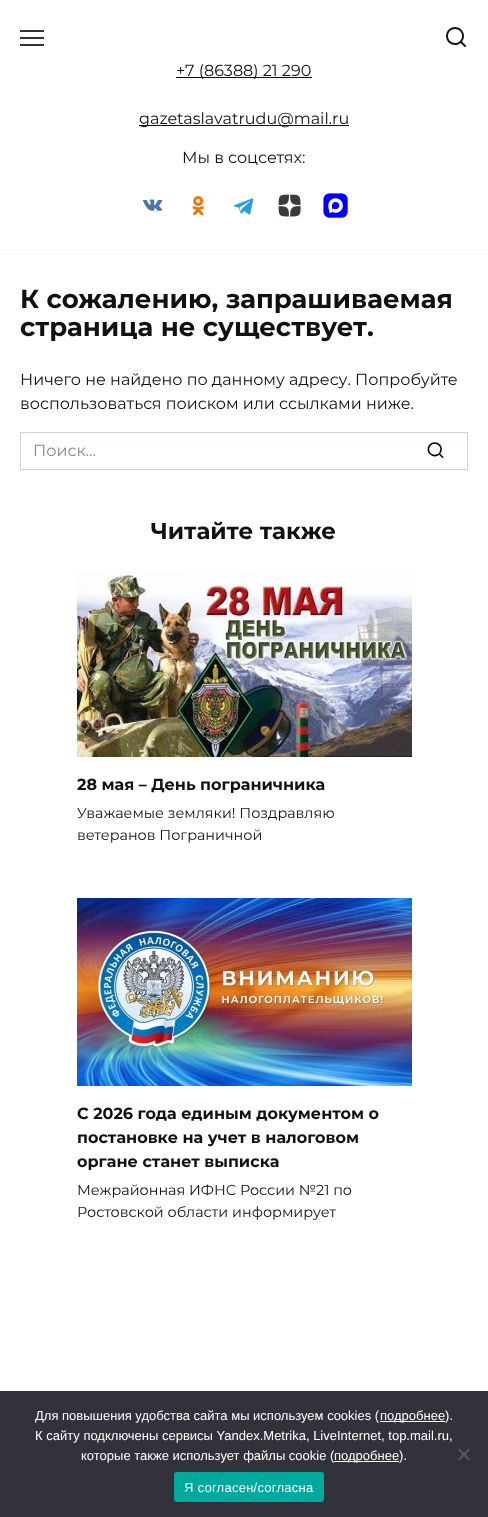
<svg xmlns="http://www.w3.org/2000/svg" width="488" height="1517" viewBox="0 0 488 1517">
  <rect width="100%" height="100%" fill="#ffffff"/>
  <rect x="0" y="254" width="488" height="1" fill="#f2f5f9"/>
  <rect x="20" y="30" width="24" height="2" fill="#333333"/>
  <rect x="20" y="37" width="24" height="2" fill="#333333"/>
  <rect x="20" y="44" width="24" height="2" fill="#333333"/>
  <text x="444" y="47" font-family="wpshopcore" font-size="24" fill="#111111">🔍</text>
  <rect x="176" y="77" width="136" height="1" fill="#111111"/>
  <text x="176" y="76" font-family="Montserrat" font-size="16" fill="#111111">+7 (86388) 21 290</text>
  <rect x="139" y="125" width="210" height="1" fill="#111111"/>
  <text x="139" y="124" font-family="Montserrat" font-size="16" fill="#111111">gazetaslavatrudu@mail.ru</text>
  <text x="182" y="163" font-family="Montserrat" font-size="16" fill="#111111">Мы в соцсетях:</text>
  <image x="142" y="199" width="21" height="12" href="img1.png"/>
  <image x="192" y="196" width="12" height="20" href="img2.png"/>
  <image x="233" y="198" width="21" height="17" href="img3.png"/>
  <image x="278" y="194" width="23" height="23" href="img4.png"/>
  <image x="323" y="193" width="25" height="25" href="img5.png"/>
  <text x="20" y="308" font-family="Montserrat" font-size="26" font-weight="bold" fill="#111111">К сожалению, запрашиваемая</text>
  <text x="20" y="336" font-family="Montserrat" font-size="26" font-weight="bold" fill="#111111">страница не существует.</text>
  <text x="20" y="385" font-family="Montserrat" font-size="16" fill="#111111">Ничего не найдено по данному адресу. Попробуйте</text>
  <text x="20" y="409" font-family="Montserrat" font-size="16" fill="#111111">воспользоваться поиском или ссылками ниже.</text>
  <rect x="20.5" y="432.5" width="447" height="37" fill="none" stroke="#ced4da"/>
  <text x="33" y="456" font-family="Montserrat" font-size="16" fill="#888888">Поиск…</text>
  <text x="426" y="458" font-family="wpshopcore" font-size="19" fill="#000000">🔍</text>
  <text x="151" y="539" font-family="Montserrat" font-size="23" font-weight="bold" fill="#111111">Читайте также</text>
  <image x="77" y="569" width="335" height="188" href="img6.png"/>
  <text x="77" y="790" font-family="Montserrat" font-size="16" font-weight="bold" fill="#111111">28 мая – День пограничника</text>
  <text x="77" y="818" font-family="Montserrat" font-size="14.4" fill="#111111">Уважаемые земляки! Поздравляю</text>
  <text x="77" y="840" font-family="Montserrat" font-size="14.4" fill="#111111">ветеранов Пограничной</text>
  <image x="77" y="898" width="335" height="188" href="img7.png"/>
  <text x="77" y="1119" font-family="Montserrat" font-size="16" font-weight="bold" fill="#111111">С 2026 года единым документом о</text>
  <text x="77" y="1143" font-family="Montserrat" font-size="16" font-weight="bold" fill="#111111">постановке на учет в налоговом</text>
  <text x="77" y="1167" font-family="Montserrat" font-size="16" font-weight="bold" fill="#111111">органе станет выписка</text>
  <text x="77" y="1195" font-family="Montserrat" font-size="14.4" fill="#111111">Межрайонная ИФНС России №21 по</text>
  <text x="77" y="1217" font-family="Montserrat" font-size="14.4" fill="#111111">Ростовской области информирует</text>
  <rect x="0" y="1391" width="488" height="126" fill="#32323a"/>
  <text x="35" y="1420" font-family="Liberation Sans" font-size="13" fill="#ffffff">Для повышения удобства сайта мы используем cookies (</text>
  <rect x="380" y="1421" width="65" height="1" fill="#ffffff"/>
  <text x="380" y="1420" font-family="Liberation Sans" font-size="13" fill="#ffffff">подробнее).</text>
  <text x="35" y="1440" font-family="Liberation Sans" font-size="13" fill="#ffffff">К сайту подключены сервисы Yandex.Metrika, LiveInternet, top.mail.ru,</text>
  <text x="81" y="1460" font-family="Liberation Sans" font-size="13" fill="#ffffff">которые также использует файлы cookie (</text>
  <rect x="334" y="1461" width="65" height="1" fill="#ffffff"/>
  <text x="334" y="1460" font-family="Liberation Sans" font-size="13" fill="#ffffff">подробнее).</text>
  <path d="M468.5 1448.5L470 1450L459.5 1460.5L458 1459Z" fill="#59595d"/>
  <path d="M458 1450L459.5 1448.5L470 1459L468.5 1460.5Z" fill="#59595d"/>
  <rect x="174" y="1472" width="150" height="30" rx="3" fill="#00a99d"/>
  <text x="184" y="1492" font-family="Liberation Sans" font-size="13" letter-spacing="0.25" fill="#ffffff">Я согласен/согласна</text>
</svg>
